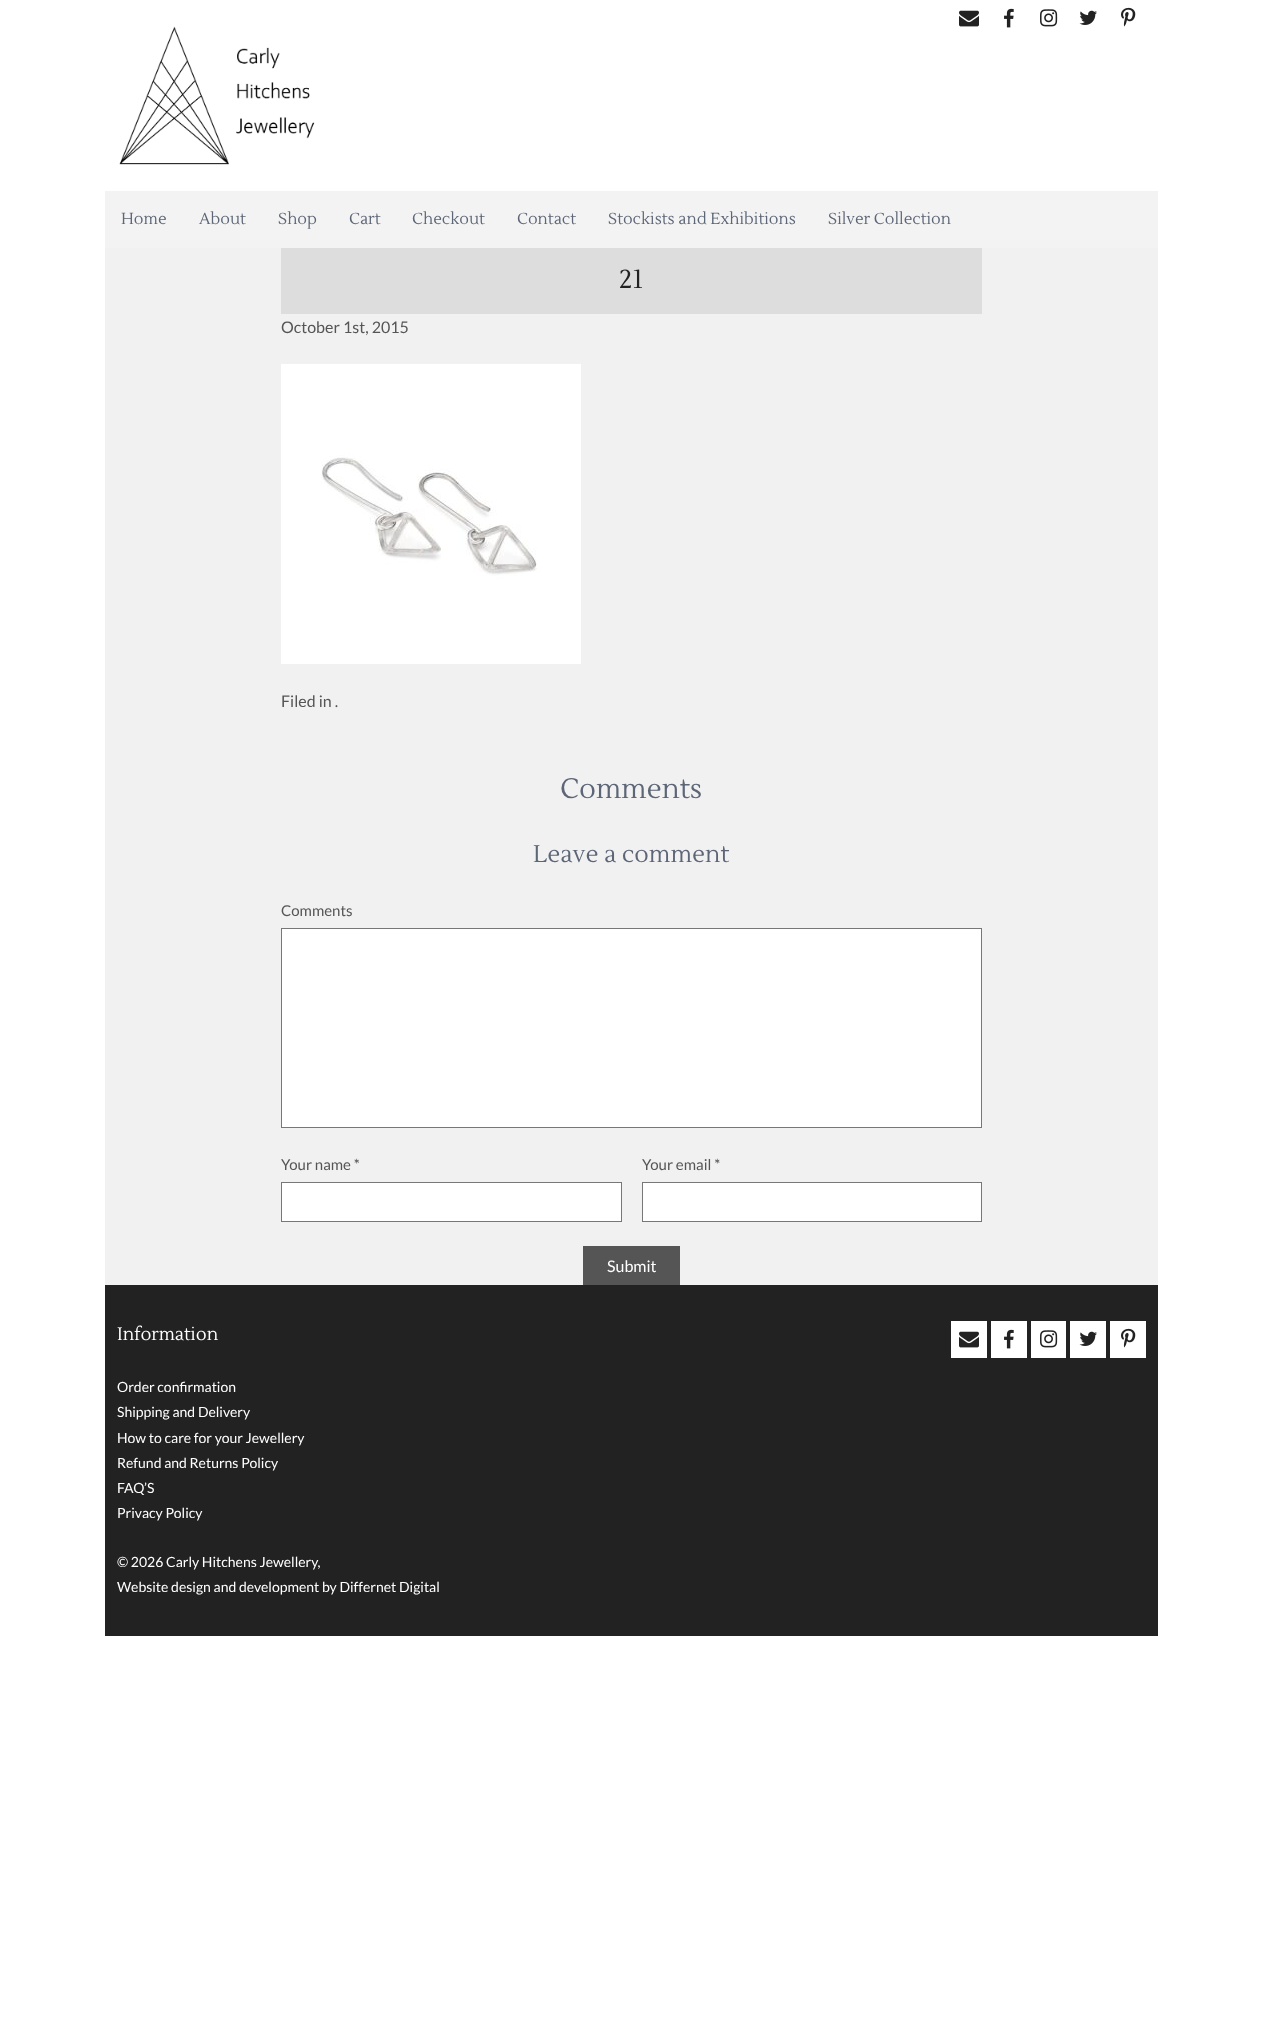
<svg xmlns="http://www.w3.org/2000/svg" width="1263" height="2019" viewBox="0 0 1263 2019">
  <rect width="100%" height="100%" fill="#ffffff"/>
  <image x="959" y="10" width="20" height="17" href="img1.png"/>
  <image x="1004" y="8" width="10" height="20" href="img2.png"/>
  <image x="1040" y="9" width="18" height="18" href="img3.png"/>
  <image x="1079" y="10" width="18" height="15" href="img4.png"/>
  <image x="1121" y="7" width="15" height="20" href="img5.png"/>
  <image x="119" y="26" width="196" height="139" href="img6.png"/>
  <rect x="105" y="191" width="1053" height="57" fill="#f3f3f3"/>
  <text x="121" y="224" font-family="Lustria" font-size="16" fill="#5d6677">Home</text>
  <text x="199" y="224" font-family="Lustria" font-size="16" fill="#5d6677">About</text>
  <text x="278" y="224" font-family="Lustria" font-size="16" fill="#5d6677">Shop</text>
  <text x="349" y="224" font-family="Lustria" font-size="16" fill="#5d6677">Cart</text>
  <text x="412" y="224" font-family="Lustria" font-size="16" fill="#5d6677">Checkout</text>
  <text x="517" y="224" font-family="Lustria" font-size="16" fill="#5d6677">Contact</text>
  <text x="608" y="224" font-family="Lustria" font-size="16" fill="#5d6677">Stockists and Exhibitions</text>
  <text x="828" y="224" font-family="Lustria" font-size="16" fill="#5d6677">Silver Collection</text>
  <rect x="105" y="248" width="1053" height="1037" fill="#f1f1f1"/>
  <rect x="281" y="248" width="701" height="66" fill="#dddddd"/>
  <text x="619" y="288" font-family="Lustria" font-size="26" fill="#222222">21</text>
  <text x="281" y="333" font-family="Lato" font-size="16" fill="#555555">October 1st, 2015</text>
  <image x="281" y="364" width="300" height="300" href="img7.png"/>
  <text x="281" y="707" font-family="Lato" font-size="16" fill="#555555">Filed in .</text>
  <text x="560" y="798" font-family="Lustria" font-size="28" fill="#5d6677">Comments</text>
  <text x="533" y="862" font-family="Lustria" font-size="24" fill="#5d6677">Leave a comment</text>
  <text x="281" y="916" font-family="Lato" font-size="15" fill="#555555">Comments</text>
  <rect x="281.5" y="928.5" width="700" height="199" fill="#ffffff" stroke="#777777"/>
  <text x="281" y="1170" font-family="Lato" font-size="15" fill="#555555">Your name *</text>
  <rect x="281.5" y="1182.5" width="340" height="39" fill="#ffffff" stroke="#777777"/>
  <text x="642" y="1170" font-family="Lato" font-size="15" fill="#555555">Your email *</text>
  <rect x="642.5" y="1182.5" width="339" height="39" fill="#ffffff" stroke="#777777"/>
  <rect x="583" y="1246" width="97" height="39" fill="#555555"/>
  <text x="607" y="1272" font-family="Lato" font-size="16" fill="#ffffff">Submit</text>
  <rect x="105" y="1285" width="1053" height="351" fill="#222222"/>
  <text x="117" y="1340" font-family="Lustria" font-size="18" fill="#ffffff">Information</text>
  <text x="117" y="1392" font-family="Lato" font-size="14" fill="#ffffff">Order confirmation</text>
  <text x="117" y="1417" font-family="Lato" font-size="14" fill="#ffffff">Shipping and Delivery</text>
  <text x="117" y="1443" font-family="Lato" font-size="14" fill="#ffffff">How to care for your Jewellery</text>
  <text x="117" y="1468" font-family="Lato" font-size="14" fill="#ffffff">Refund and Returns Policy</text>
  <text x="117" y="1493" font-family="Lato" font-size="14" fill="#ffffff">FAQ’S</text>
  <text x="117" y="1518" font-family="Lato" font-size="14" fill="#ffffff">Privacy Policy</text>
  <rect x="951" y="1321" width="36" height="37" fill="#ffffff"/>
  <image x="959" y="1331" width="20" height="17" href="img1.png"/>
  <rect x="991" y="1321" width="36" height="37" fill="#ffffff"/>
  <image x="1004" y="1329" width="10" height="20" href="img2.png"/>
  <rect x="1031" y="1321" width="35" height="37" fill="#ffffff"/>
  <image x="1040" y="1330" width="18" height="18" href="img3.png"/>
  <rect x="1070" y="1321" width="36" height="37" fill="#ffffff"/>
  <image x="1079" y="1331" width="18" height="15" href="img4.png"/>
  <rect x="1110" y="1321" width="36" height="37" fill="#ffffff"/>
  <image x="1121" y="1328" width="15" height="20" href="img5.png"/>
  <text x="117" y="1567" font-family="Lato" font-size="14" fill="#ffffff">© 2026 Carly Hitchens Jewellery,</text>
  <text x="117" y="1592" font-family="Lato" font-size="14" fill="#ffffff">Website design and development by Differnet Digital</text>
</svg>
